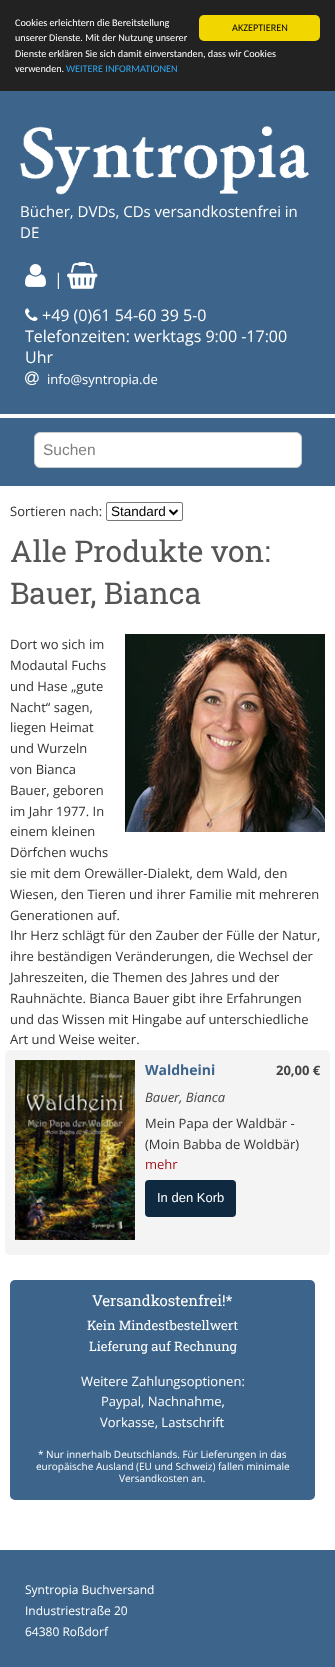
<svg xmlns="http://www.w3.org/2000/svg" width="335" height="1667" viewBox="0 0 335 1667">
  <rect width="100%" height="100%" fill="#ffffff"/>
  <rect x="0" y="0" width="335" height="91" fill="#222222"/>
  <text x="15" y="26" font-family="Carlito" font-size="10.2" fill="#ffffff">Cookies erleichtern die Bereitstellung</text>
  <text x="15" y="41" font-family="Carlito" font-size="10.2" fill="#ffffff">unserer Dienste. Mit der Nutzung unserer</text>
  <text x="15" y="57" font-family="Carlito" font-size="10.2" fill="#ffffff">Dienste erklären Sie sich damit einverstanden, dass wir Cookies</text>
  <text x="15" y="72" font-family="Carlito" font-size="10.2" fill="#ffffff">verwenden.</text>
  <text x="66" y="72" font-family="Carlito" font-size="10.2" fill="#31a8f0">WEITERE INFORMATIONEN</text>
  <rect x="199" y="15" width="121" height="26" rx="5" fill="#f1d600"/>
  <text x="232" y="31" font-family="Carlito" font-size="10.2" fill="#000000">AKZEPTIEREN</text>
  <rect x="0" y="91" width="335" height="323" fill="#3d658c"/>
  <image x="20" y="126" width="289" height="69" href="img1.png"/>
  <text x="20" y="217" font-family="Open Sans" font-size="15" fill="#ffffff">Bücher, DVDs, CDs versandkostenfrei in</text>
  <text x="20" y="238" font-family="Open Sans" font-size="15" fill="#ffffff">DE</text>
  <image x="25" y="264" width="21" height="23" href="img2.png"/>
  <text x="54" y="285" font-family="Open Sans" font-size="16" fill="#ffffff">|</text>
  <image x="67" y="262" width="31" height="27" href="img3.png"/>
  <image x="25" y="308" width="13" height="13" href="img4.png"/>
  <text x="42" y="321" font-family="Open Sans" font-size="16" fill="#ffffff">+49 (0)61 54-60 39 5-0</text>
  <text x="25" y="342" font-family="Open Sans" font-size="16" fill="#ffffff">Telefonzeiten: werktags 9:00 -17:00</text>
  <text x="25" y="363" font-family="Open Sans" font-size="16" fill="#ffffff">Uhr</text>
  <image x="25" y="371" width="14" height="15" href="img5.png"/>
  <text x="47" y="384" font-family="Open Sans" font-size="13" fill="#ffffff">info@syntropia.de</text>
  <rect x="0" y="418" width="335" height="68" fill="#3d658c"/>
  <rect x="34.5" y="432.5" width="267" height="35" rx="5.5" fill="#ffffff" stroke="#cccccc"/>
  <text x="43" y="455" font-family="Liberation Sans" font-size="15.5" fill="#808080">Suchen</text>
  <text x="10" y="516" font-family="Open Sans" font-size="13" fill="#323232">Sortieren nach:</text>
  <rect x="106.5" y="502.5" width="76" height="18" rx="1.5" fill="none" stroke="#767676"/>
  <path d="M169.5 510L173.5 514L177.5 510" fill="none" stroke="#000000" stroke-width="2"/>
  <text x="111" y="516" font-family="Liberation Sans" font-size="13.5" fill="#000000">Standard</text>
  <text x="10" y="562" font-family="Roboto Slab" font-size="30" fill="#555555">Alle Produkte von:</text>
  <text x="10" y="604" font-family="Roboto Slab" font-size="30" fill="#555555">Bauer, Bianca</text>
  <image x="125" y="634" width="200" height="198" href="img6.png"/>
  <text x="10" y="649" font-family="Open Sans" font-size="13" fill="#323232">Dort wo sich im</text>
  <text x="10" y="670" font-family="Open Sans" font-size="13" fill="#323232">Modautal Fuchs</text>
  <text x="10" y="691" font-family="Open Sans" font-size="13" fill="#323232">und Hase „gute</text>
  <text x="10" y="712" font-family="Open Sans" font-size="13" fill="#323232">Nacht“ sagen,</text>
  <text x="10" y="732" font-family="Open Sans" font-size="13" fill="#323232">liegen Heimat</text>
  <text x="10" y="753" font-family="Open Sans" font-size="13" fill="#323232">und Wurzeln</text>
  <text x="10" y="774" font-family="Open Sans" font-size="13" fill="#323232">von Bianca</text>
  <text x="10" y="795" font-family="Open Sans" font-size="13" fill="#323232">Bauer, geboren</text>
  <text x="10" y="816" font-family="Open Sans" font-size="13" fill="#323232">im Jahr 1977. In</text>
  <text x="10" y="836" font-family="Open Sans" font-size="13" fill="#323232">einem kleinen</text>
  <text x="10" y="857" font-family="Open Sans" font-size="13" fill="#323232">Dörfchen wuchs</text>
  <text x="10" y="878" font-family="Open Sans" font-size="13" fill="#323232">sie mit dem Orewäller-Dialekt, dem Wald, den</text>
  <text x="10" y="899" font-family="Open Sans" font-size="13" fill="#323232">Wiesen, den Tieren und ihrer Familie mit mehreren</text>
  <text x="10" y="920" font-family="Open Sans" font-size="13" fill="#323232">Generationen auf.</text>
  <text x="10" y="940" font-family="Open Sans" font-size="13" fill="#323232">Ihr Herz schlägt für den Zauber der Fülle der Natur,</text>
  <text x="10" y="961" font-family="Open Sans" font-size="13" fill="#323232">ihre beständigen Veränderungen, die Wechsel der</text>
  <text x="10" y="982" font-family="Open Sans" font-size="13" fill="#323232">Jahreszeiten, die Themen des Jahres und der</text>
  <text x="10" y="1003" font-family="Open Sans" font-size="13" fill="#323232">Rauhnächte. Bianca Bauer gibt ihre Erfahrungen</text>
  <text x="10" y="1024" font-family="Open Sans" font-size="13" fill="#323232">und das Wissen mit Hingabe auf unterschiedliche</text>
  <text x="10" y="1044" font-family="Open Sans" font-size="13" fill="#323232">Art und Weise weiter.</text>
  <rect x="5" y="1050" width="325" height="205" rx="5" fill="#f5f4f4"/>
  <image x="15" y="1060" width="120" height="180" href="img7.png"/>
  <text x="145" y="1075" font-family="Open Sans" font-size="14" font-weight="bold" fill="#3d658c">Waldheini</text>
  <text x="276" y="1075" font-family="Open Sans" font-size="13" font-weight="bold" fill="#444444">20,00 €</text>
  <text x="145" y="1102" font-family="Open Sans" font-size="13" font-style="italic" fill="#444444">Bauer, Bianca</text>
  <text x="145" y="1128" font-family="Open Sans" font-size="13" fill="#323232">Mein Papa der Waldbär -</text>
  <text x="145" y="1149" font-family="Open Sans" font-size="13" fill="#323232">(Moin Babba de Woldbär)</text>
  <text x="145" y="1169" font-family="Open Sans" font-size="13" fill="#9d0d15">mehr</text>
  <rect x="145" y="1180" width="91" height="37" rx="4" fill="#0e2940"/>
  <text x="157" y="1202" font-family="Liberation Sans" font-size="13" fill="#ffffff">In den Korb</text>
  <rect x="10" y="1280" width="305" height="220" rx="5" fill="#3d658c"/>
  <text x="92" y="1306" font-family="Roboto Slab" font-size="15" fill="#ffffff">Versandkostenfrei!*</text>
  <text x="87" y="1330" font-family="Roboto Slab" font-size="13" fill="#ffffff">Kein Mindestbestellwert</text>
  <text x="89" y="1351" font-family="Roboto Slab" font-size="13" fill="#ffffff">Lieferung auf Rechnung</text>
  <text x="81" y="1386" font-family="Open Sans" font-size="13" fill="#ffffff">Weitere Zahlungsoptionen:</text>
  <text x="101" y="1406" font-family="Open Sans" font-size="13" fill="#ffffff">Paypal, Nachnahme,</text>
  <text x="100" y="1427" font-family="Open Sans" font-size="13" fill="#ffffff">Vorkasse, Lastschrift</text>
  <text x="38" y="1458" font-family="Open Sans" font-size="10" fill="#ffffff">* Nur innerhalb Deutschlands. Für Lieferungen in das</text>
  <text x="36" y="1470" font-family="Open Sans" font-size="10" fill="#ffffff">europäische Ausland (EU und Schweiz) fallen minimale</text>
  <text x="119" y="1482" font-family="Open Sans" font-size="10" fill="#ffffff">Versandkosten an.</text>
  <rect x="0" y="1550" width="335" height="117" fill="#3d658c"/>
  <text x="25" y="1594" font-family="Open Sans" font-size="12" fill="#ffffff">Syntropia Buchversand</text>
  <text x="25" y="1615" font-family="Open Sans" font-size="12" fill="#ffffff">Industriestraße 20</text>
  <text x="25" y="1636" font-family="Open Sans" font-size="12" fill="#ffffff">64380 Roßdorf</text>
</svg>
